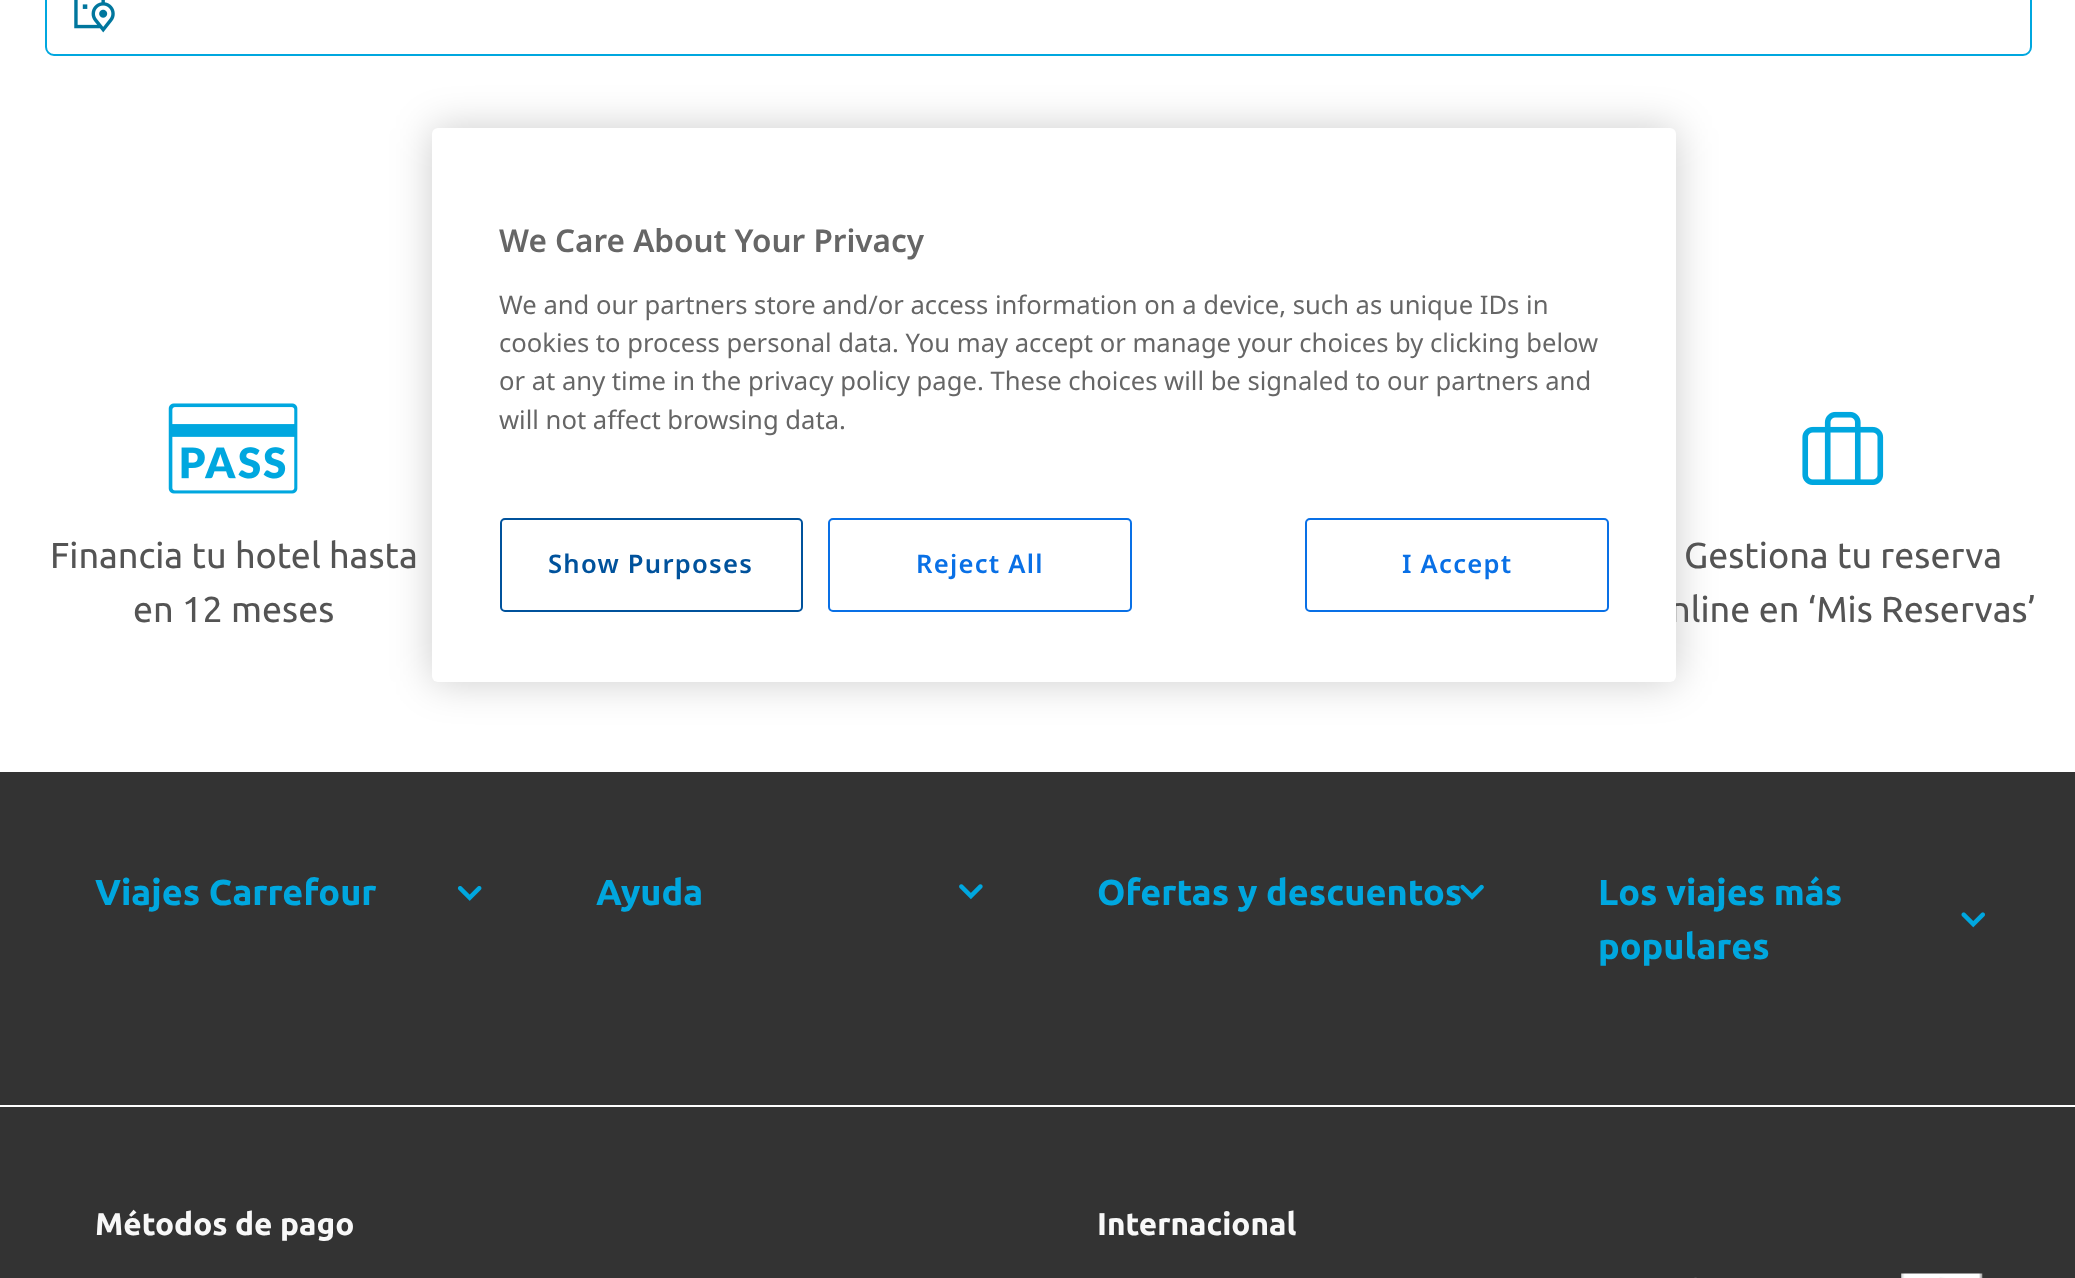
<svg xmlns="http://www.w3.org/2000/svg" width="2075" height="1278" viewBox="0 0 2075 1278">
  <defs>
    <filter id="blur1" x="-50%" y="-200%" width="200%" height="500%"><feGaussianBlur stdDeviation="20"/></filter>
  </defs>
  <rect width="100%" height="100%" fill="#ffffff"/>
  <rect x="432" y="128" width="1244" height="554" rx="6" fill="#000000" fill-opacity="0.2" filter="url(#blur1)"/>
  <text x="1670" y="622" font-family="Ubuntu" font-size="36" fill="#545454">nline en ‘Mis Reservas’</text>
  <rect x="432" y="128" width="1244" height="554" rx="6" fill="#ffffff"/>
  <text x="499" y="252" font-family="Noto Sans" font-size="31.5" font-weight="600" fill="#666666">We Care About Your Privacy</text>
  <text x="499" y="314" font-family="Noto Sans" font-size="25.6" fill="#666666">We and our partners store and/or access information on a device, such as unique IDs in</text>
  <text x="499" y="352" font-family="Noto Sans" font-size="25.6" fill="#666666">cookies to process personal data. You may accept or manage your choices by clicking below</text>
  <text x="499" y="390" font-family="Noto Sans" font-size="25.6" fill="#666666">or at any time in the privacy policy page. These choices will be signaled to our partners and</text>
  <text x="499" y="429" font-family="Noto Sans" font-size="25.6" fill="#666666">will not affect browsing data.</text>
  <rect x="501" y="519" width="301" height="92" rx="4" fill="none" stroke="#00529c" stroke-width="2"/>
  <text x="548" y="573" font-family="Noto Sans" font-size="25.6" font-weight="600" letter-spacing="1.25" fill="#00529c">Show Purposes</text>
  <rect x="829" y="519" width="302" height="92" rx="4" fill="none" stroke="#0970e6" stroke-width="2"/>
  <text x="916" y="573" font-family="Noto Sans" font-size="25.6" font-weight="600" letter-spacing="1.25" fill="#0970e6">Reject All</text>
  <rect x="1306" y="519" width="302" height="92" rx="4" fill="none" stroke="#0970e6" stroke-width="2"/>
  <text x="1402" y="573" font-family="Noto Sans" font-size="25.6" font-weight="600" letter-spacing="1.25" fill="#0970e6">I Accept</text>
  <rect x="46" y="-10" width="1985" height="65" rx="8" fill="none" stroke="#00a7df" stroke-width="2"/>
  <image x="74" y="0" width="41" height="33" href="img1.png"/>
  <image x="168" y="403" width="130" height="91" href="img2.png"/>
  <text x="50" y="568" font-family="Ubuntu" font-size="36" fill="#545454">Financia tu hotel hasta</text>
  <text x="133" y="622" font-family="Ubuntu" font-size="36" fill="#545454">en 12 meses</text>
  <image x="1802" y="411" width="82" height="74" href="img3.png"/>
  <text x="1684" y="568" font-family="Ubuntu" font-size="36" fill="#545454">Gestiona tu reserva</text>
  <rect x="0" y="772" width="2075" height="506" fill="#333333"/>
  <text x="95" y="905" font-family="Ubuntu" font-size="36" font-weight="bold" fill="#00a7df">Viajes Carrefour</text>
  <image x="457" y="886" width="25" height="15" href="img4.png"/>
  <text x="596" y="905" font-family="Ubuntu" font-size="36" font-weight="bold" fill="#00a7df">Ayuda</text>
  <image x="959" y="884" width="24" height="16" href="img5.png"/>
  <text x="1097" y="905" font-family="Ubuntu" font-size="36" font-weight="bold" fill="#00a7df">Ofertas y descuentos</text>
  <image x="1460" y="884" width="24" height="16" href="img6.png"/>
  <text x="1598" y="905" font-family="Ubuntu" font-size="36" font-weight="bold" fill="#00a7df">Los viajes más</text>
  <text x="1598" y="959" font-family="Ubuntu" font-size="36" font-weight="bold" fill="#00a7df">populares</text>
  <image x="1961" y="912" width="24" height="16" href="img7.png"/>
  <rect x="0" y="1105" width="2075" height="2" fill="#ffffff"/>
  <text x="95" y="1235" font-family="Ubuntu" font-size="31.5" font-weight="bold" fill="#f8f8f8">Métodos de pago</text>
  <text x="1097" y="1235" font-family="Ubuntu" font-size="31.5" font-weight="bold" fill="#f8f8f8">Internacional</text>
  <image x="1694" y="1277" width="3" height="1" href="img8.png"/>
  <image x="1901" y="1273" width="82" height="5" href="img9.png"/>
</svg>
